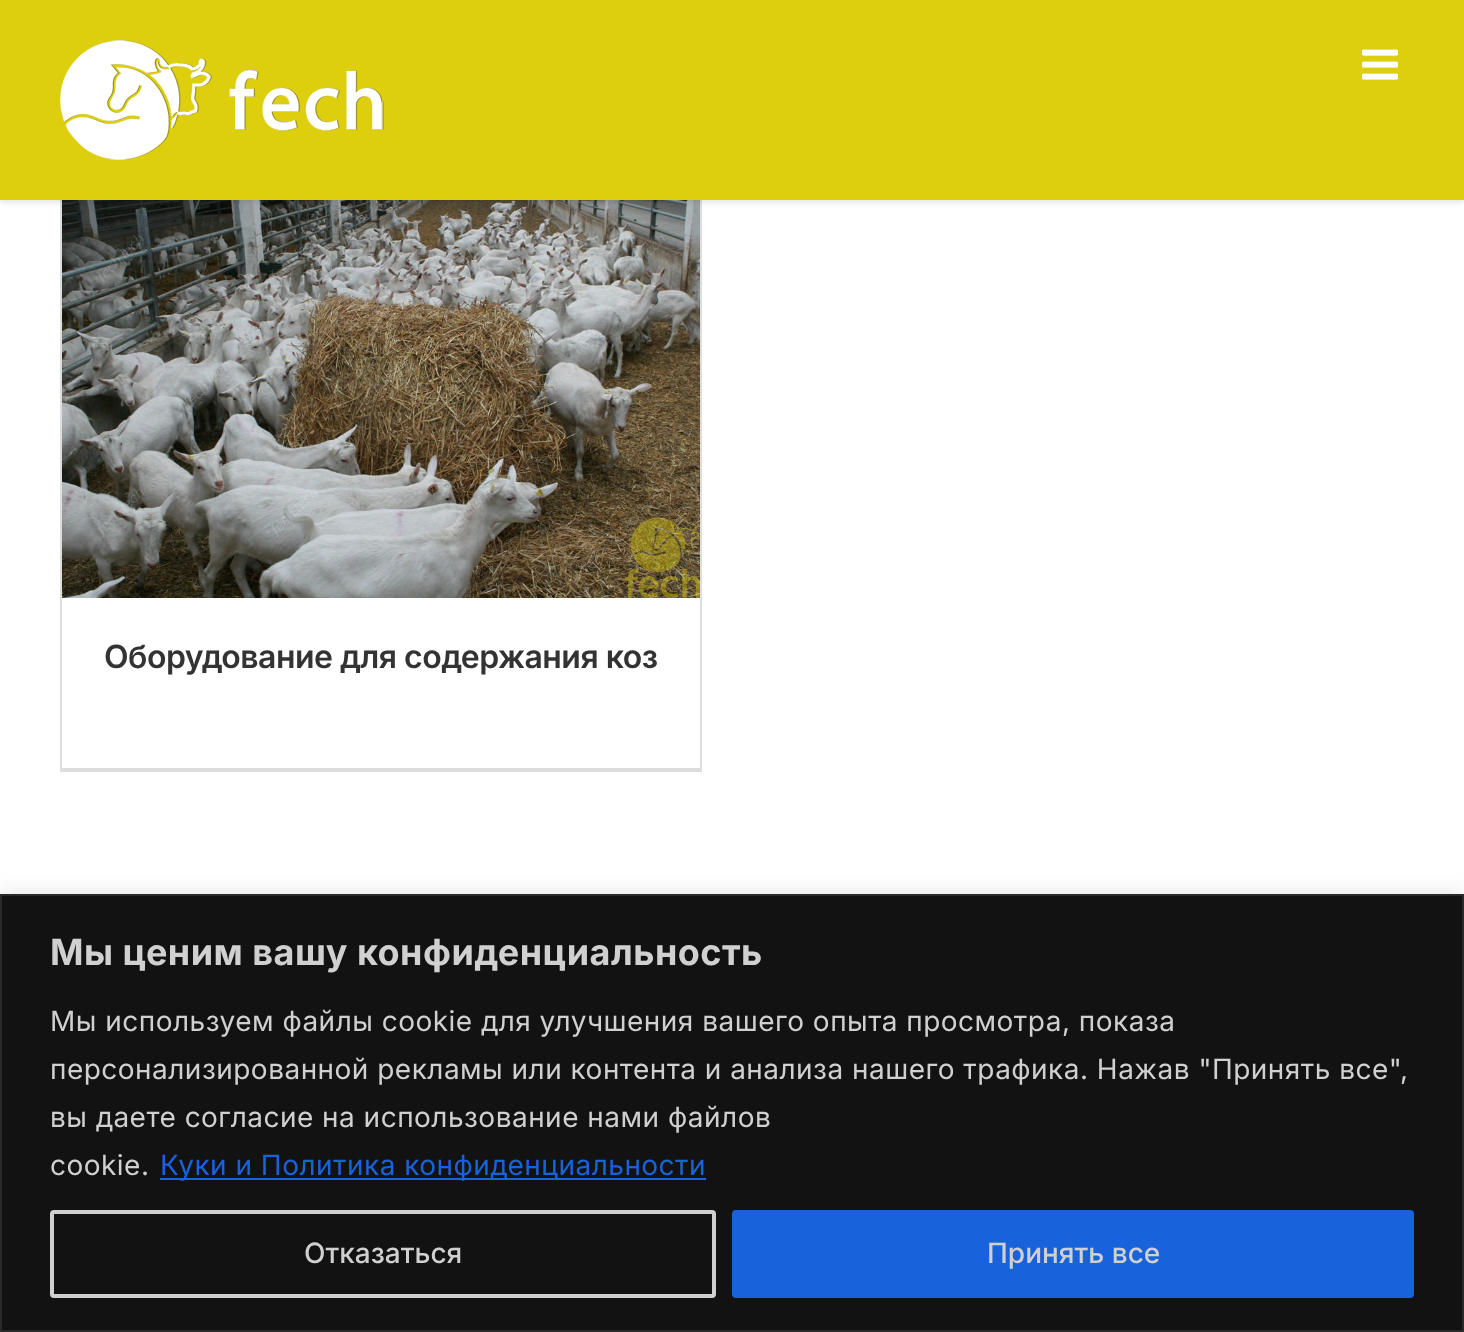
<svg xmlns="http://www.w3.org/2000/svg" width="1464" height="1332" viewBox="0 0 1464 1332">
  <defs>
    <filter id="blur1" x="-50%" y="-200%" width="200%" height="500%"><feGaussianBlur stdDeviation="3"/></filter>
    <filter id="blur2" x="-50%" y="-200%" width="200%" height="500%"><feGaussianBlur stdDeviation="10"/></filter>
  </defs>
  <rect width="100%" height="100%" fill="#ffffff"/>
  <rect x="700" y="200" width="2" height="572" fill="#dddddd"/>
  <rect x="60" y="768" width="642" height="4" fill="#dddddd"/>
  <rect x="60" y="200" width="2" height="572" fill="#dddddd"/>
  <image x="62" y="200" width="638" height="398" href="img3.png"/>
  <rect x="0" y="2" width="1464" height="200" fill="#000000" fill-opacity="0.12" filter="url(#blur1)"/>
  <rect x="0" y="0" width="1464" height="200" fill="#ddcf0e"/>
  <image x="60" y="40" width="324" height="120" href="img1.png"/>
  <image x="1362" y="49" width="36" height="31" href="img2.png"/>
  <text x="104" y="668" font-family="Inter" font-size="32" font-weight="600" letter-spacing="-0.5" fill="#333333">Оборудование для содержания коз</text>
  <rect x="0" y="892" width="1464" height="438" fill="#acabab" fill-opacity="0.3" filter="url(#blur2)"/>
  <rect x="1" y="895" width="1462" height="436" fill="#121212" stroke="#2a2a2a" stroke-width="2"/>
  <text x="50" y="965" font-family="Inter" font-size="36" font-weight="bold" letter-spacing="0.48" fill="#d0d0d0">Мы ценим вашу конфиденциальность</text>
  <text x="50" y="1031" font-family="Inter" font-size="28" letter-spacing="0.48" fill="#d0d0d0">Мы используем файлы cookie для улучшения вашего опыта просмотра, показа</text>
  <text x="50" y="1079" font-family="Inter" font-size="28" letter-spacing="0.48" fill="#d0d0d0">персонализированной рекламы или контента и анализа нашего трафика. Нажав "Принять все",</text>
  <text x="50" y="1127" font-family="Inter" font-size="28" letter-spacing="0.48" fill="#d0d0d0">вы даете согласие на использование нами файлов</text>
  <text x="50" y="1175" font-family="Inter" font-size="28" letter-spacing="0.48" fill="#d0d0d0">cookie.</text>
  <rect x="160" y="1178" width="546" height="2" fill="#1863dc"/>
  <text x="160" y="1175" font-family="Inter" font-size="28" letter-spacing="0.48" fill="#1863dc">Куки и Политика конфиденциальности</text>
  <rect x="52" y="1212" width="662" height="84" rx="2" fill="none" stroke="#d0d0d0" stroke-width="4"/>
  <text x="304" y="1263" font-family="Inter" font-size="28" font-weight="500" fill="#d0d0d0">Отказаться</text>
  <rect x="734" y="1212" width="678" height="84" rx="2" fill="#1863dc" stroke="#1863dc" stroke-width="4"/>
  <text x="987" y="1263" font-family="Inter" font-size="28" font-weight="500" fill="#d0d0d0">Принять все</text>
</svg>
